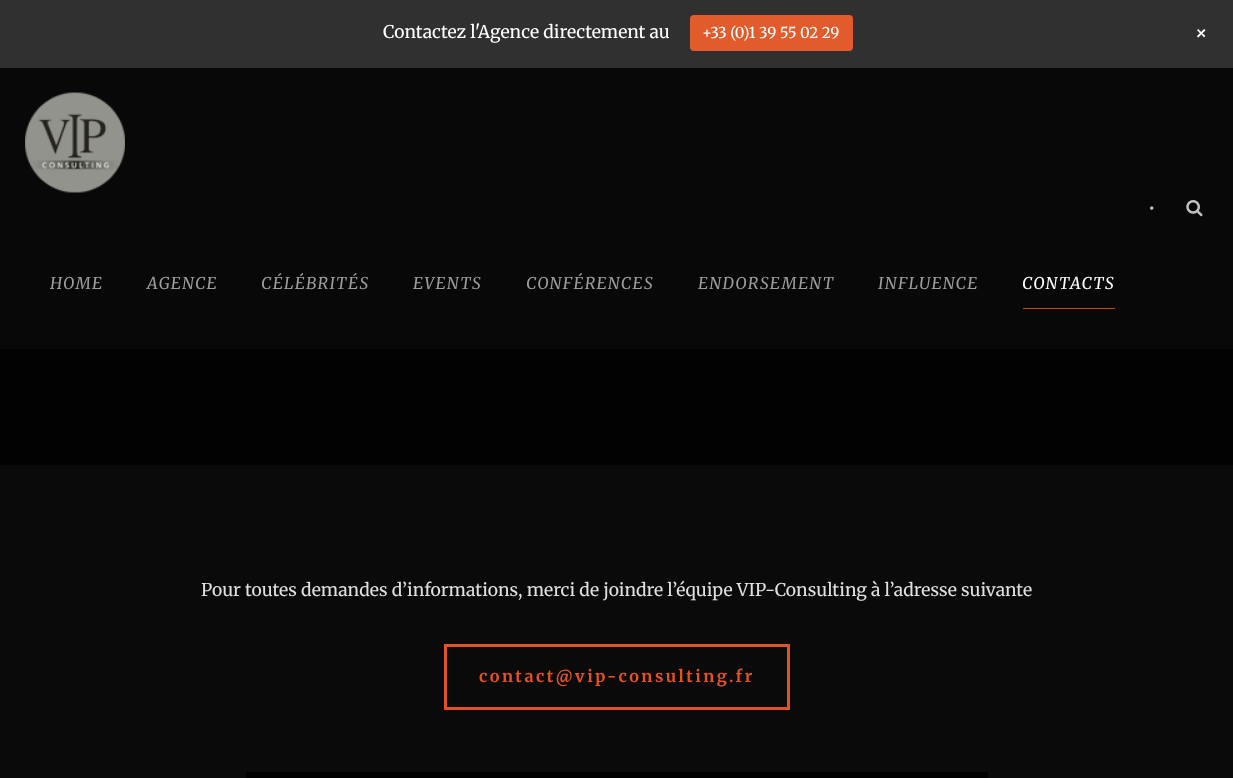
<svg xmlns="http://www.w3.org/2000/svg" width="1233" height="778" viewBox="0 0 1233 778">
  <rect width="100%" height="100%" fill="#0a0a0a"/>
  <rect x="0" y="0" width="1233" height="68" fill="#303030"/>
  <text x="383" y="38" font-family="Merriweather" font-size="17.5" fill="#ffffff">Contactez l'Agence directement au</text>
  <rect x="690" y="15" width="163" height="36" rx="4" fill="#e25b2c"/>
  <text x="702" y="38" font-family="Merriweather" font-size="15" fill="#ffffff">+33 (0)1 39 55 02 29</text>
  <text x="1191" y="33" transform="rotate(45 1191 33)" font-family="Merriweather" font-size="22" fill="#ffffff">+</text>
  <rect x="0" y="68" width="1233" height="397" fill="#020202"/>
  <rect x="0" y="68" width="1233" height="281" fill="#0a0a0a" fill-opacity="0.8"/>
  <image x="25" y="92" width="100" height="101" href="img1.png"/>
  <text x="1148" y="214" font-family="Merriweather" font-size="17.5" fill="#c1c1c1">•</text>
  <image x="1186" y="200" width="17" height="17" href="img2.png"/>
  <text x="50" y="289" font-family="Merriweather" font-size="16.25" font-style="italic" letter-spacing="1.25" fill="#9c9c9c">HOME</text>
  <text x="147" y="289" font-family="Merriweather" font-size="16.25" font-style="italic" letter-spacing="1.25" fill="#9c9c9c">AGENCE</text>
  <text x="261" y="289" font-family="Merriweather" font-size="16.25" font-style="italic" letter-spacing="1.25" fill="#9c9c9c">CÉLÉBRITÉS</text>
  <text x="413" y="289" font-family="Merriweather" font-size="16.25" font-style="italic" letter-spacing="1.25" fill="#9c9c9c">EVENTS</text>
  <text x="526" y="289" font-family="Merriweather" font-size="16.25" font-style="italic" letter-spacing="1.25" fill="#9c9c9c">CONFÉRENCES</text>
  <text x="698" y="289" font-family="Merriweather" font-size="16.25" font-style="italic" letter-spacing="1.25" fill="#9c9c9c">ENDORSEMENT</text>
  <text x="878" y="289" font-family="Merriweather" font-size="16.25" font-style="italic" letter-spacing="1.25" fill="#9c9c9c">INFLUENCE</text>
  <text x="1022" y="289" font-family="Merriweather" font-size="16.25" font-style="italic" letter-spacing="1.25" fill="#ffffff">CONTACTS</text>
  <rect x="1023" y="308" width="92" height="1" fill="#c94900"/>
  <text x="201" y="596" font-family="Merriweather" font-size="17.5" fill="#e0e0e0">Pour toutes demandes d’informations, merci de joindre l’équipe VIP-Consulting à l’adresse suivante</text>
  <rect x="445.5" y="645.5" width="343" height="63" fill="none" stroke="#e35225" stroke-width="3"/>
  <text x="479" y="682" font-family="Merriweather" font-size="16.25" font-weight="bold" letter-spacing="2.5" fill="#e35225">contact@vip-consulting.fr</text>
  <rect x="246" y="772" width="742" height="6" fill="#000000"/>
</svg>
